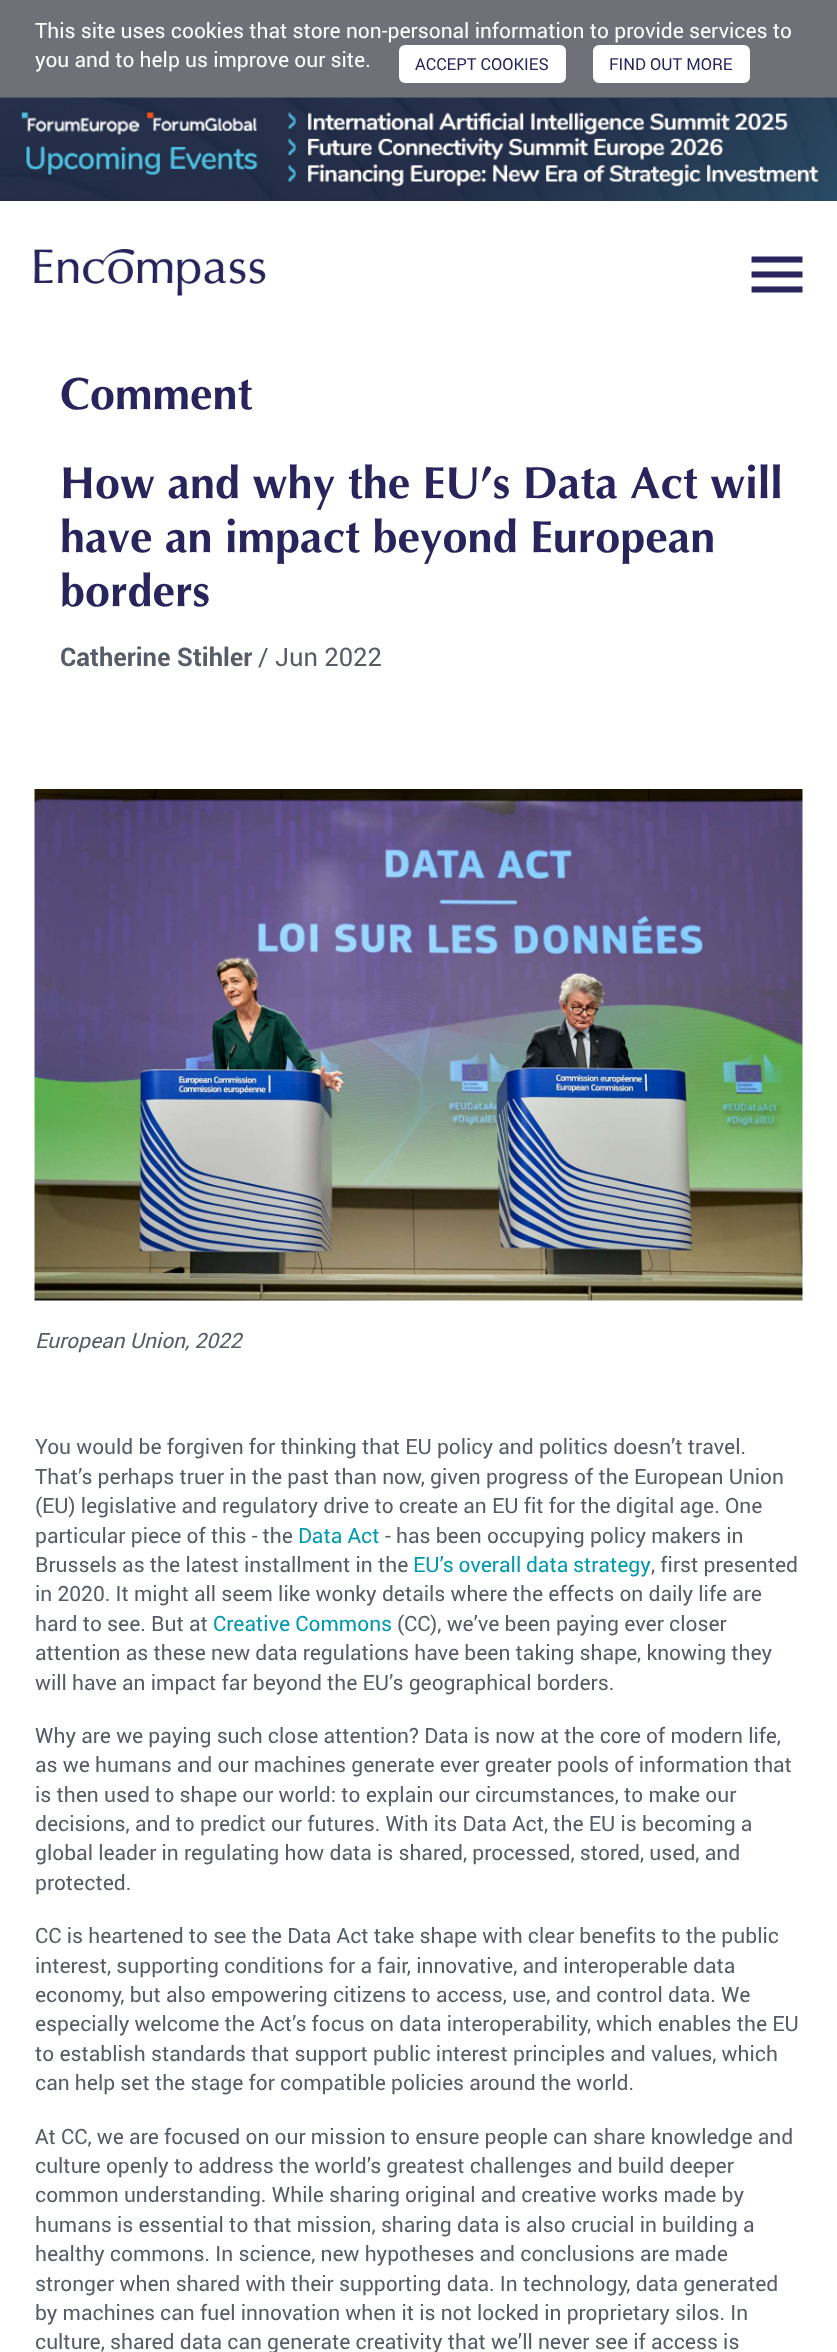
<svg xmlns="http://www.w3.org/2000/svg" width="837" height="2352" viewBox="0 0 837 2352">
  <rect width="100%" height="100%" fill="#ffffff"/>
  <rect x="0" y="0" width="837" height="98" fill="#6e7278"/>
  <text x="35" y="38" font-family="roboto" font-size="21" fill="#ffffff">This site uses cookies that store non-personal information to provide services to</text>
  <text x="35" y="67" font-family="roboto" font-size="21" fill="#ffffff">you and to help us improve our site.</text>
  <rect x="400" y="46" width="165" height="36" rx="5" fill="#ffffff" stroke="#ffffff" stroke-width="2"/>
  <text x="415" y="70" font-family="roboto" font-size="16.5" fill="#29245c">ACCEPT COOKIES</text>
  <rect x="594" y="46" width="155" height="36" rx="5" fill="#ffffff" stroke="#ffffff" stroke-width="2"/>
  <text x="609" y="70" font-family="roboto" font-size="16.5" fill="#29245c">FIND OUT MORE</text>
  <image x="0" y="97" width="837" height="104" href="img1.png"/>
  <image x="34" y="249" width="232" height="47" href="img2.png"/>
  <image x="751" y="256" width="52" height="37" href="img3.png"/>
  <text x="60" y="409" font-family="Optima" font-size="45" fill="#29245c">Comment</text>
  <text x="60" y="498" font-family="Optima" font-size="45" fill="#29245c">How and why the EU’s Data Act will</text>
  <text x="60" y="552" font-family="Optima" font-size="45" fill="#29245c">have an impact beyond European</text>
  <text x="60" y="606" font-family="Optima" font-size="45" fill="#29245c">borders</text>
  <text x="60" y="666" font-family="roboto" font-size="25.5" font-weight="bold" fill="#575d67">Catherine Stihler</text>
  <text x="258" y="666" font-family="roboto" font-size="25.5" fill="#575d67">/ Jun 2022</text>
  <image x="34" y="789" width="769" height="512" href="img4.png"/>
  <text x="35" y="1348" font-family="roboto" font-size="21" font-style="italic" fill="#575d67">European Union, 2022</text>
  <text x="35" y="1454" font-family="roboto" font-size="21" fill="#575d67">You would be forgiven for thinking that EU policy and politics doesn’t travel.</text>
  <text x="35" y="1484" font-family="roboto" font-size="21" fill="#575d67">That’s perhaps truer in the past than now, given progress of the European Union</text>
  <text x="35" y="1513" font-family="roboto" font-size="21" fill="#575d67">(EU) legislative and regulatory drive to create an EU fit for the digital age. One</text>
  <text x="35" y="1543" font-family="roboto" font-size="21" fill="#575d67">particular piece of this - the</text>
  <text x="298" y="1543" font-family="roboto" font-size="21" fill="#0099ad">Data Act</text>
  <text x="385" y="1543" font-family="roboto" font-size="21" fill="#575d67">- has been occupying policy makers in</text>
  <text x="35" y="1572" font-family="roboto" font-size="21" fill="#575d67">Brussels as the latest installment in the</text>
  <text x="413" y="1572" word-spacing="-0.5" font-family="roboto" font-size="21" fill="#0099ad">EU’s overall data strategy</text>
  <text x="651" y="1572" font-family="roboto" font-size="21" fill="#575d67">, first presented</text>
  <text x="35" y="1601" font-family="roboto" font-size="21" fill="#575d67">in 2020. It might all seem like wonky details where the effects on daily life are</text>
  <text x="35" y="1631" font-family="roboto" font-size="21" fill="#575d67">hard to see. But at</text>
  <text x="213" y="1631" font-family="roboto" font-size="21" fill="#0099ad">Creative Commons</text>
  <text x="397" y="1631" font-family="roboto" font-size="21" fill="#575d67">(CC), we’ve been paying ever closer</text>
  <text x="35" y="1660" font-family="roboto" font-size="21" fill="#575d67">attention as these new data regulations have been taking shape, knowing they</text>
  <text x="35" y="1690" font-family="roboto" font-size="21" fill="#575d67">will have an impact far beyond the EU’s geographical borders.</text>
  <text x="35" y="1743" font-family="roboto" font-size="21" fill="#575d67">Why are we paying such close attention? Data is now at the core of modern life,</text>
  <text x="35" y="1772" font-family="roboto" font-size="21" fill="#575d67">as we humans and our machines generate ever greater pools of information that</text>
  <text x="35" y="1802" font-family="roboto" font-size="21" fill="#575d67">is then used to shape our world: to explain our circumstances, to make our</text>
  <text x="35" y="1831" font-family="roboto" font-size="21" fill="#575d67">decisions, and to predict our futures. With its Data Act, the EU is becoming a</text>
  <text x="35" y="1860" font-family="roboto" font-size="21" fill="#575d67">global leader in regulating how data is shared, processed, stored, used, and</text>
  <text x="35" y="1890" font-family="roboto" font-size="21" fill="#575d67">protected.</text>
  <text x="35" y="1943" font-family="roboto" font-size="21" fill="#575d67">CC is heartened to see the Data Act take shape with clear benefits to the public</text>
  <text x="35" y="1973" font-family="roboto" font-size="21" fill="#575d67">interest, supporting conditions for a fair, innovative, and interoperable data</text>
  <text x="35" y="2002" font-family="roboto" font-size="21" fill="#575d67">economy, but also empowering citizens to access, use, and control data. We</text>
  <text x="35" y="2031" font-family="roboto" font-size="21" fill="#575d67">especially welcome the Act’s focus on data interoperability, which enables the EU</text>
  <text x="35" y="2061" font-family="roboto" font-size="21" fill="#575d67">to establish standards that support public interest principles and values, which</text>
  <text x="35" y="2090" font-family="roboto" font-size="21" fill="#575d67">can help set the stage for compatible policies around the world.</text>
  <text x="35" y="2144" font-family="roboto" font-size="21" fill="#575d67">At CC, we are focused on our mission to ensure people can share knowledge and</text>
  <text x="35" y="2173" font-family="roboto" font-size="21" fill="#575d67">culture openly to address the world’s greatest challenges and build deeper</text>
  <text x="35" y="2202" font-family="roboto" font-size="21" fill="#575d67">common understanding. While sharing original and creative works made by</text>
  <text x="35" y="2232" font-family="roboto" font-size="21" fill="#575d67">humans is essential to that mission, sharing data is also crucial in building a</text>
  <text x="35" y="2261" font-family="roboto" font-size="21" fill="#575d67">healthy commons. In science, new hypotheses and conclusions are made</text>
  <text x="35" y="2291" font-family="roboto" font-size="21" fill="#575d67">stronger when shared with their supporting data. In technology, data generated</text>
  <text x="35" y="2320" font-family="roboto" font-size="21" fill="#575d67">by machines can fuel innovation when it is not locked in proprietary silos. In</text>
  <text x="35" y="2349" font-family="roboto" font-size="21" fill="#575d67">culture, shared data can generate creativity that we’ll never see if access is</text>
</svg>
